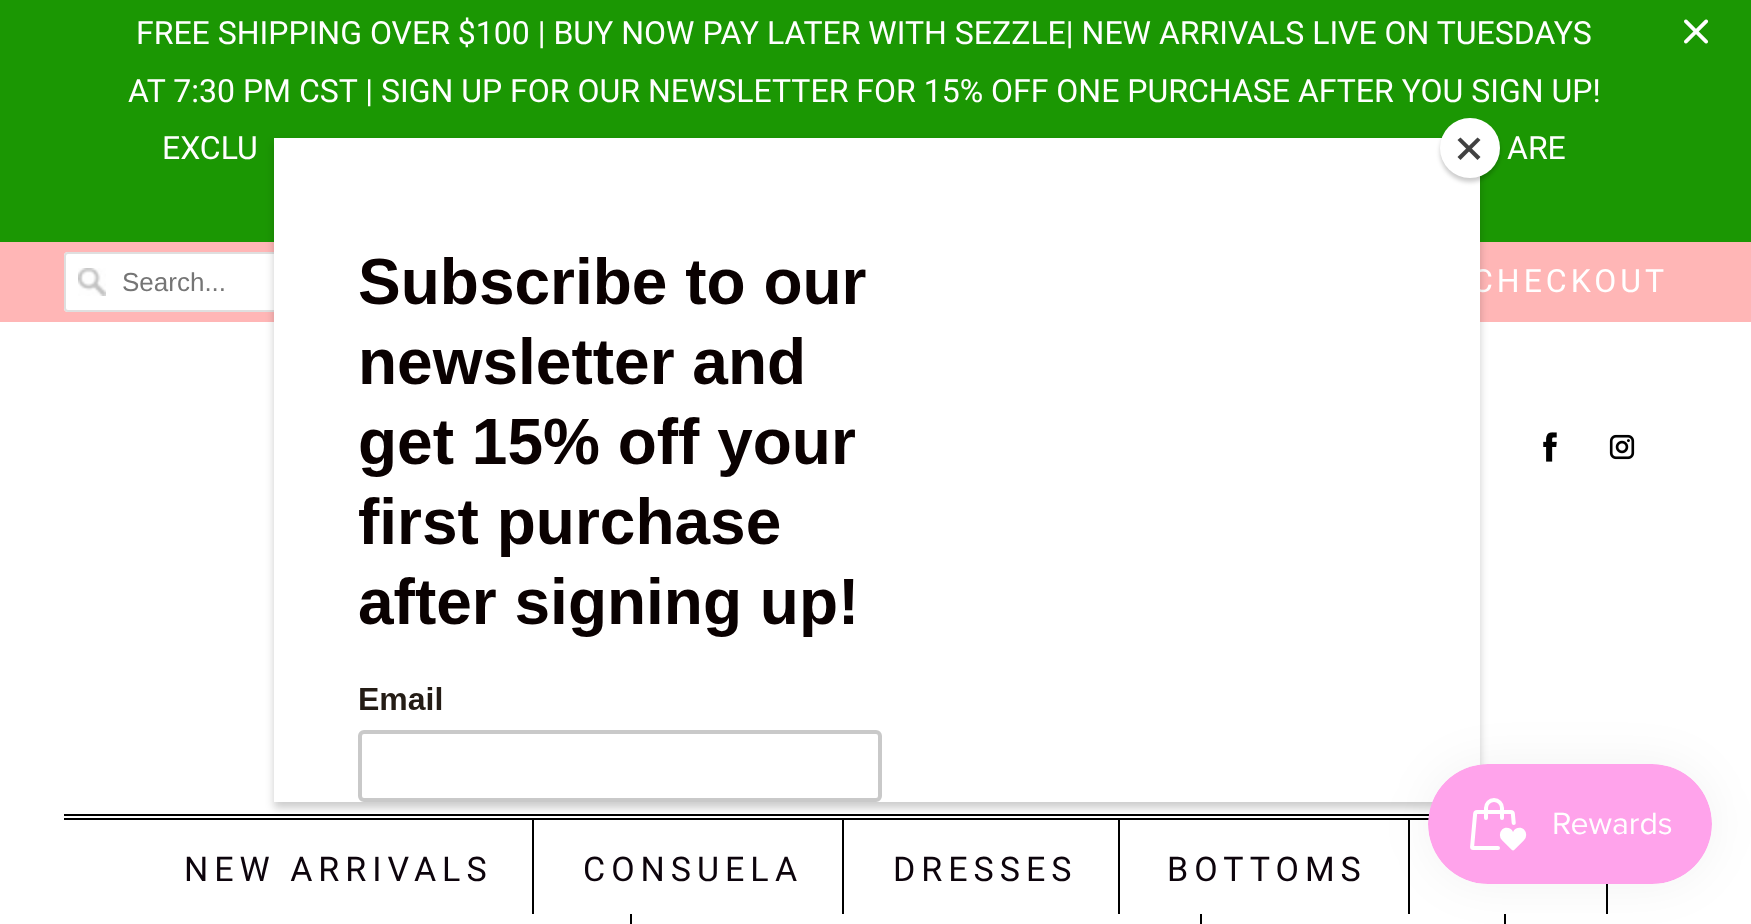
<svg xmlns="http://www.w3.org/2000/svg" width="1751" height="924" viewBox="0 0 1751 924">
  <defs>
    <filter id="blur1" x="-50%" y="-200%" width="200%" height="500%"><feGaussianBlur stdDeviation="4"/></filter>
    <filter id="blur2" x="-50%" y="-200%" width="200%" height="500%"><feGaussianBlur stdDeviation="2"/></filter>
    <filter id="blur3" x="-50%" y="-200%" width="200%" height="500%"><feGaussianBlur stdDeviation="25"/></filter>
  </defs>
  <rect width="100%" height="100%" fill="#ffffff"/>
  <rect x="0" y="0" width="1751" height="242" fill="#1b9703"/>
  <text x="136" y="44" font-family="Roboto" font-size="32" fill="#ffffff">FREE SHIPPING OVER $100 | BUY NOW PAY LATER WITH SEZZLE| NEW ARRIVALS LIVE ON TUESDAYS</text>
  <text x="128" y="102" font-family="Roboto" font-size="32" fill="#ffffff">AT 7:30 PM CST | SIGN UP FOR OUR NEWSLETTER FOR 15% OFF ONE PURCHASE AFTER YOU SIGN UP!</text>
  <text x="162" y="159" font-family="Roboto" font-size="32" fill="#ffffff">EXCLU</text>
  <text x="1507" y="159" font-family="Roboto" font-size="32" fill="#ffffff">ARE</text>
  <image x="1684" y="19" width="25" height="25" href="img1.png"/>
  <rect x="0" y="242" width="1751" height="80" fill="#ffb6b6"/>
  <rect x="64" y="252" width="376" height="60" rx="4" fill="#ffffff"/>
  <image x="78" y="268" width="28" height="28" href="img2.png"/>
  <rect x="65" y="253" width="374" height="58" rx="3" fill="none" stroke="#dfdfdf" stroke-width="2"/>
  <text x="122" y="291" font-family="Liberation Sans" font-size="26" fill="#757575">Search...</text>
  <text x="1472" y="292" font-family="Roboto" font-size="32" letter-spacing="4" fill="#ffffff">CHECKOUT</text>
  <image x="1543" y="432" width="14" height="30" href="img3.png"/>
  <image x="1609" y="434" width="26" height="26" href="img4.png"/>
  <rect x="64" y="814" width="1365" height="2" fill="#000000"/>
  <rect x="64" y="818" width="1365" height="2" fill="#000000"/>
  <rect x="532" y="820" width="2" height="94" fill="#000000"/>
  <text x="184" y="881" font-family="Roboto" font-size="34" letter-spacing="6" fill="#0d040c">NEW ARRIVALS</text>
  <rect x="842" y="820" width="2" height="94" fill="#000000"/>
  <text x="583" y="881" font-family="Roboto" font-size="34" letter-spacing="6" fill="#0d040c">CONSUELA</text>
  <rect x="1118" y="820" width="2" height="94" fill="#000000"/>
  <text x="893" y="881" font-family="Roboto" font-size="34" letter-spacing="6" fill="#0d040c">DRESSES</text>
  <rect x="1408" y="820" width="2" height="94" fill="#000000"/>
  <text x="1167" y="881" font-family="Roboto" font-size="34" letter-spacing="6" fill="#0d040c">BOTTOMS</text>
  <rect x="1606" y="884" width="2" height="30" fill="#000000"/>
  <rect x="630" y="914" width="2" height="10" fill="#000000"/>
  <rect x="1200" y="914" width="2" height="10" fill="#000000"/>
  <rect x="1504" y="914" width="2" height="10" fill="#000000"/>
  <rect x="274" y="142" width="1206" height="666" fill="#000000" fill-opacity="0.2" filter="url(#blur1)"/>
  <image x="274" y="138" width="1206" height="664" href="img5.png"/>
  <rect x="1440" y="122" width="60" height="60" rx="30" fill="#000000" fill-opacity="0.2" filter="url(#blur2)"/>
  <circle cx="1470" cy="148" r="30" fill="#ffffff"/>
  <path d="M1477.5 137.5L1480.5 140L1460.5 160L1457.5 157Z" fill="#414141"/>
  <path d="M1457.5 140L1460.5 137.5L1480.5 157L1477.5 160Z" fill="#414141"/>
  <rect x="1428" y="764" width="284" height="120" rx="60" fill="#000000" fill-opacity="0.05" filter="url(#blur3)"/>
  <image x="1428" y="764" width="284" height="120" href="img6.png"/>
</svg>
